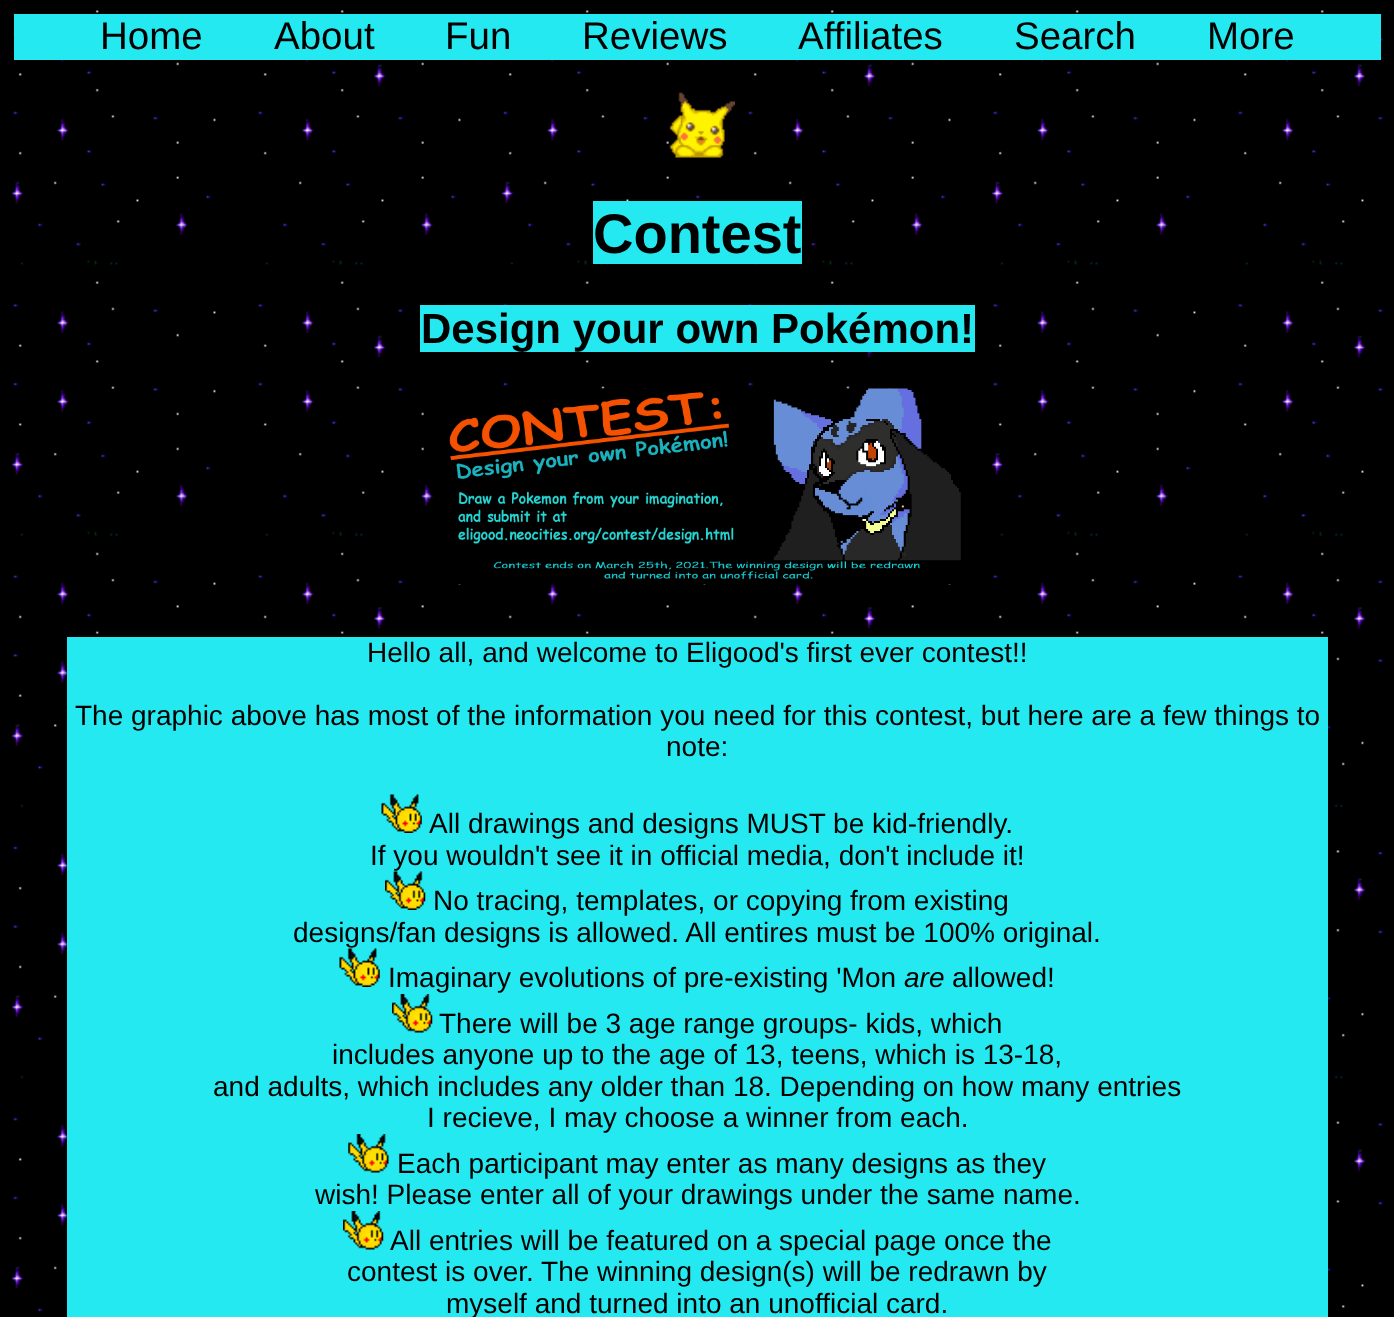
<svg xmlns="http://www.w3.org/2000/svg" width="1394" height="1317" viewBox="0 0 1394 1317">
  <rect width="100%" height="100%" fill="#ffffff"/>
  <image x="0" y="0" width="1394" height="1317" href="img1.png"/>
  <rect x="14" y="14" width="1367" height="46" fill="#24e9f0"/>
  <text x="100" y="49" font-family="Liberation Sans" font-size="38.5" fill="#000000">Home</text>
  <text x="274" y="49" font-family="Liberation Sans" font-size="38.5" fill="#000000">About</text>
  <text x="445" y="49" font-family="Liberation Sans" font-size="38.5" fill="#000000">Fun</text>
  <text x="582" y="49" font-family="Liberation Sans" font-size="38.5" fill="#000000">Reviews</text>
  <text x="798" y="49" font-family="Liberation Sans" font-size="38.5" fill="#000000">Affiliates</text>
  <text x="1014" y="49" font-family="Liberation Sans" font-size="38.5" fill="#000000">Search</text>
  <text x="1207" y="49" font-family="Liberation Sans" font-size="38.5" fill="#000000">More</text>
  <image x="669" y="92" width="66" height="66" href="img2.png"/>
  <rect x="593" y="201" width="209" height="63" fill="#24e9f0"/>
  <text x="593" y="253" font-family="Liberation Sans" font-size="56" font-weight="bold" fill="#000000">Contest</text>
  <rect x="420" y="305" width="555" height="47" fill="#24e9f0"/>
  <text x="421" y="343" font-family="Liberation Sans" font-size="42" font-weight="bold" fill="#000000">Design your own Pokémon!</text>
  <image x="449" y="388" width="512" height="197" href="img3.png"/>
  <rect x="67" y="637" width="1261" height="680" fill="#24e9f0"/>
  <text x="367" y="662" font-family="Liberation Sans" font-size="28" fill="#000000">Hello all, and welcome to Eligood's first ever contest!!</text>
  <text x="75" y="725" font-family="Liberation Sans" font-size="28" fill="#000000">The graphic above has most of the information you need for this contest, but here are a few things to</text>
  <text x="666" y="756" font-family="Liberation Sans" font-size="28" fill="#000000">note:</text>
  <image x="381" y="794" width="41" height="39" href="img4.png"/>
  <text x="429" y="833" font-family="Liberation Sans" font-size="28" fill="#000000">All drawings and designs MUST be kid-friendly.</text>
  <text x="370" y="865" font-family="Liberation Sans" font-size="28" fill="#000000">If you wouldn't see it in official media, don't include it!</text>
  <image x="385" y="871" width="41" height="39" href="img5.png"/>
  <text x="433" y="910" font-family="Liberation Sans" font-size="28" fill="#000000">No tracing, templates, or copying from existing</text>
  <text x="293" y="942" font-family="Liberation Sans" font-size="28" fill="#000000">designs/fan designs is allowed. All entires must be 100% original.</text>
  <image x="339" y="948" width="41" height="39" href="img6.png"/>
  <text x="388" y="987" font-family="Liberation Sans" font-size="28" fill="#000000">Imaginary evolutions of pre-existing 'Mon</text>
  <text x="904" y="987" font-family="Liberation Sans" font-size="28" font-style="italic" fill="#000000">are</text>
  <text x="952" y="987" font-family="Liberation Sans" font-size="28" fill="#000000">allowed!</text>
  <image x="392" y="994" width="41" height="39" href="img7.png"/>
  <text x="439" y="1033" font-family="Liberation Sans" font-size="28" fill="#000000">There will be 3 age range groups- kids, which</text>
  <text x="332" y="1064" font-family="Liberation Sans" font-size="28" fill="#000000">includes anyone up to the age of 13, teens, which is 13-18,</text>
  <text x="213" y="1096" font-family="Liberation Sans" font-size="28" fill="#000000">and adults, which includes any older than 18. Depending on how many entries</text>
  <text x="427" y="1127" font-family="Liberation Sans" font-size="28" fill="#000000">I recieve, I may choose a winner from each.</text>
  <image x="348" y="1134" width="41" height="39" href="img8.png"/>
  <text x="397" y="1173" font-family="Liberation Sans" font-size="28" fill="#000000">Each participant may enter as many designs as they</text>
  <text x="315" y="1204" font-family="Liberation Sans" font-size="28" fill="#000000">wish! Please enter all of your drawings under the same name.</text>
  <image x="343" y="1211" width="41" height="39" href="img9.png"/>
  <text x="390" y="1250" font-family="Liberation Sans" font-size="28" fill="#000000">All entries will be featured on a special page once the</text>
  <text x="347" y="1281" font-family="Liberation Sans" font-size="28" fill="#000000">contest is over. The winning design(s) will be redrawn by</text>
  <text x="446" y="1313" font-family="Liberation Sans" font-size="28" fill="#000000">myself and turned into an unofficial card.</text>
</svg>
